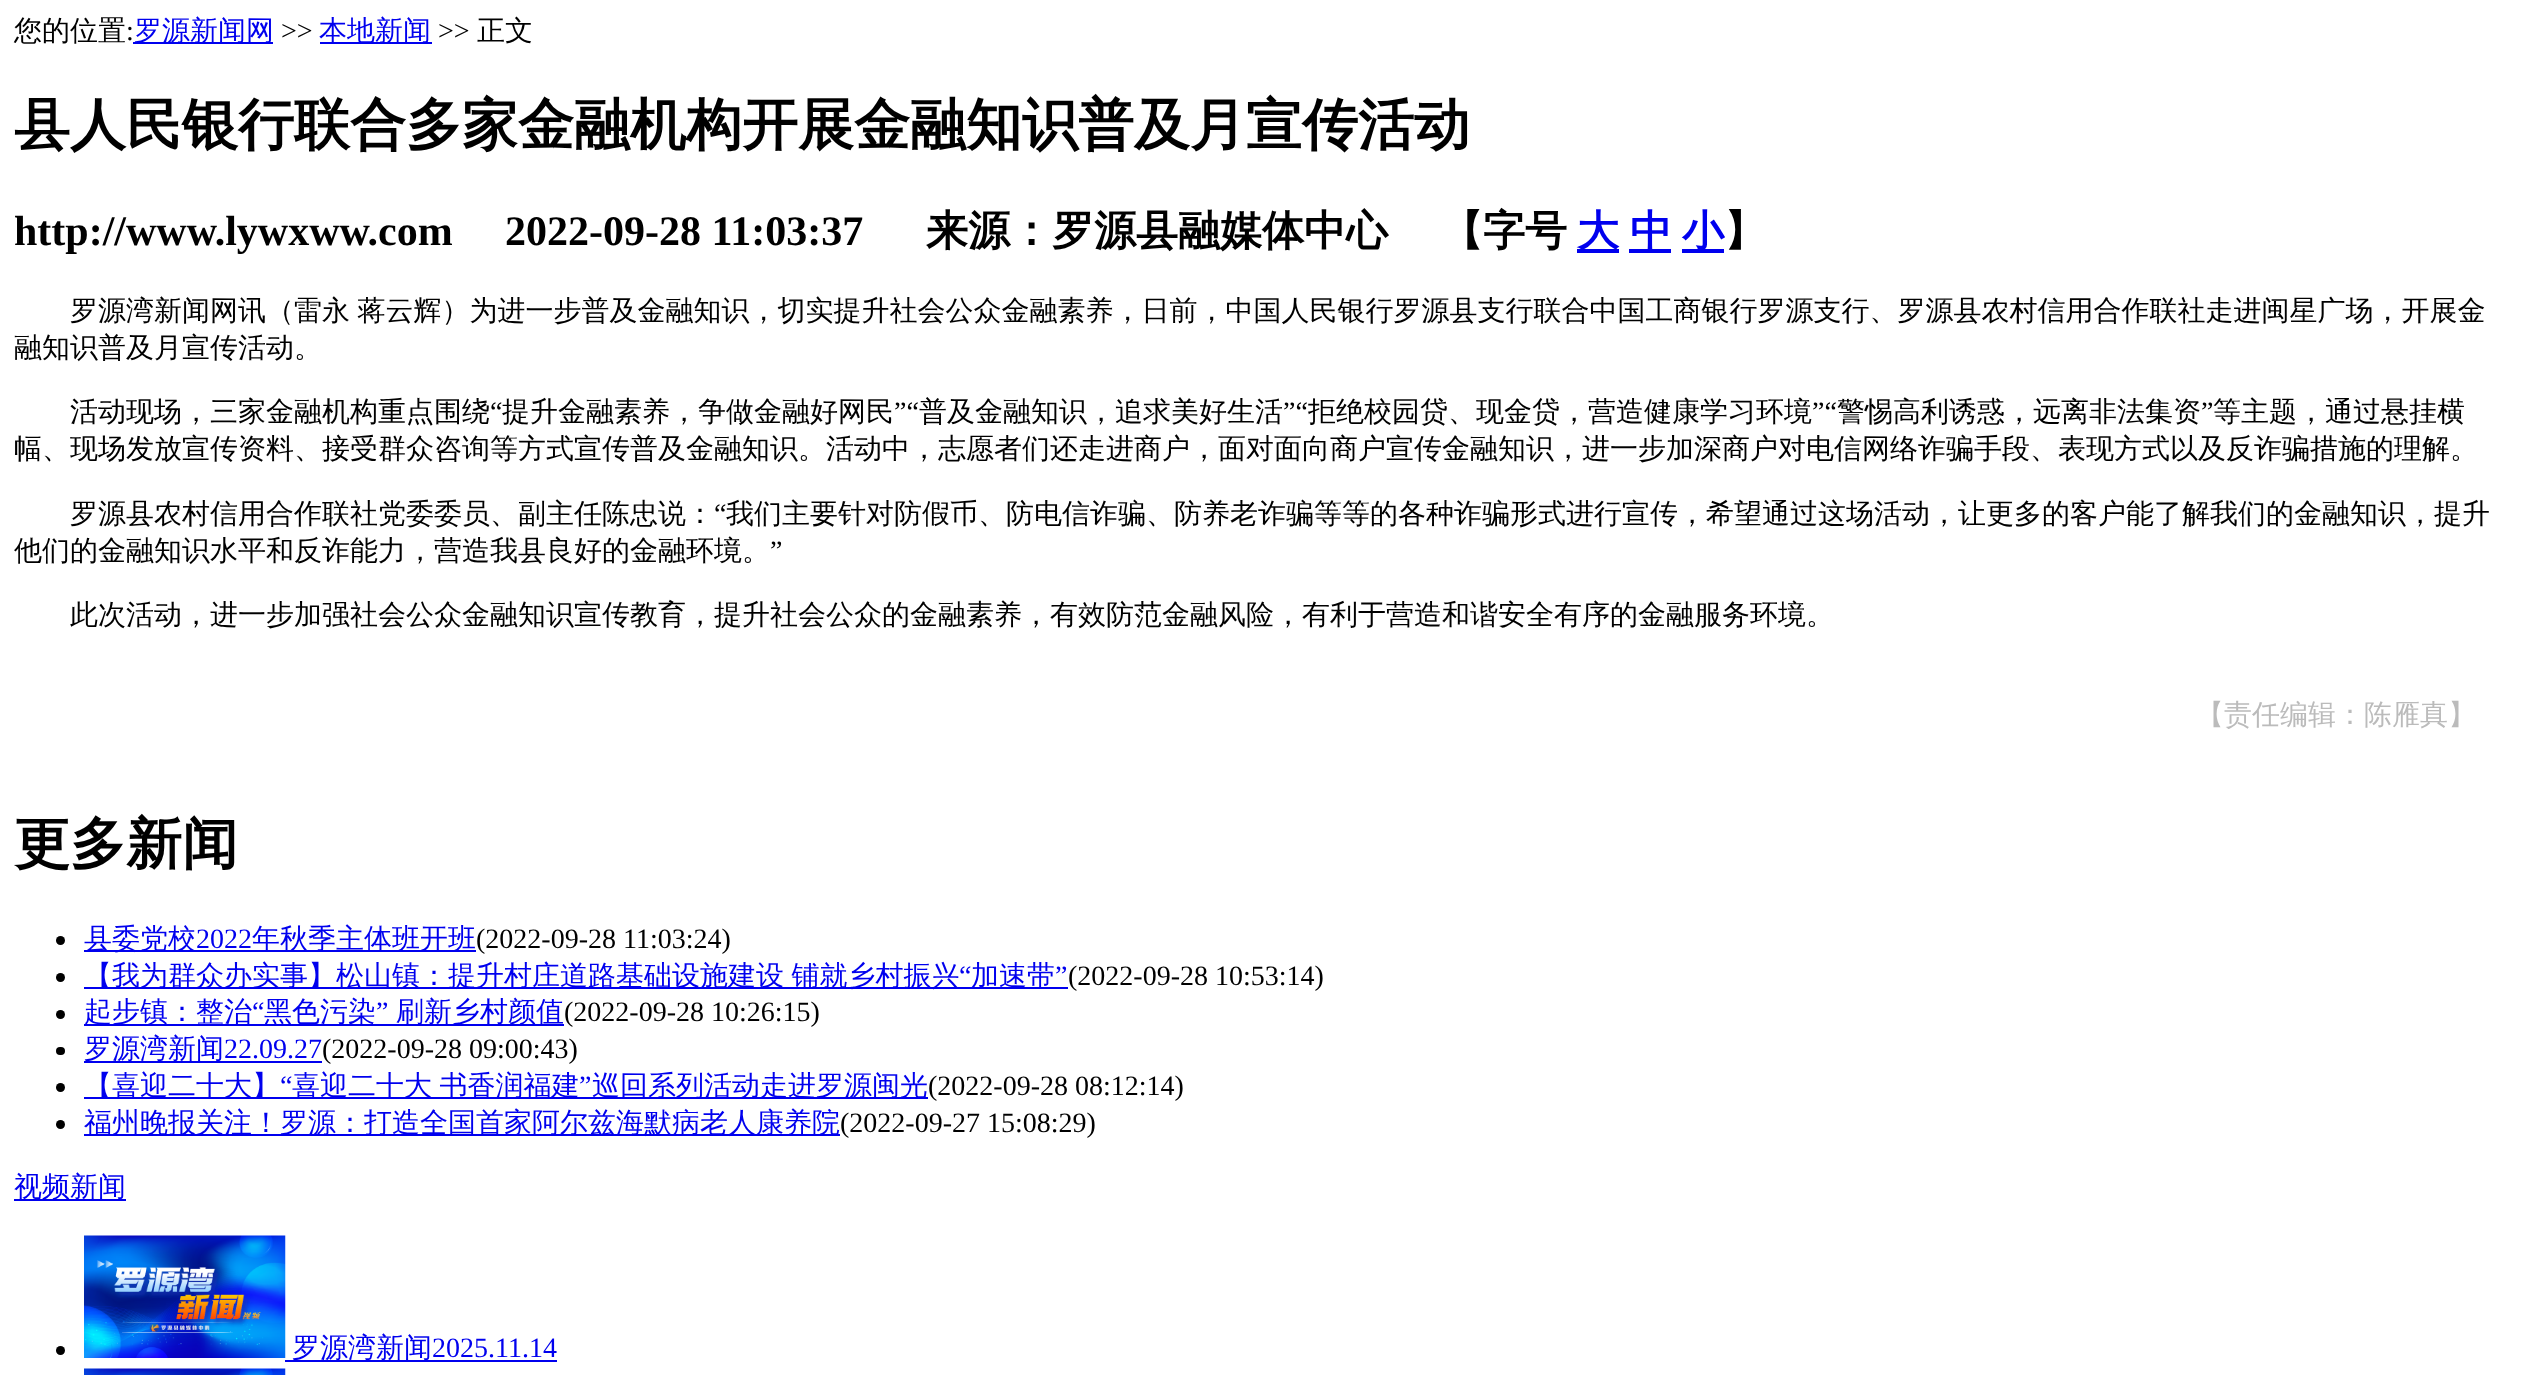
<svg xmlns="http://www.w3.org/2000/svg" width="2524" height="1375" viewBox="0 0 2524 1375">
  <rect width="100%" height="100%" fill="#ffffff"/>
  <text x="14" y="40" font-family="WenQuanYi Zen Hei" font-size="28" font-weight="500" fill="#000000">您的位置</text>
  <text x="126" y="40" font-family="Liberation Serif" font-size="28" fill="#000000">:</text>
  <rect x="133" y="42" width="140" height="2" fill="#0000ee"/>
  <text x="134" y="40" font-family="WenQuanYi Zen Hei" font-size="28" font-weight="500" fill="#0000ee">罗源新闻网</text>
  <text x="281" y="40" font-family="Liberation Serif" font-size="28" fill="#000000">&gt;&gt;</text>
  <rect x="320" y="42" width="112" height="2" fill="#0000ee"/>
  <text x="319" y="40" font-family="WenQuanYi Zen Hei" font-size="28" font-weight="500" fill="#0000ee">本地新闻</text>
  <text x="438" y="40" font-family="Liberation Serif" font-size="28" fill="#000000">&gt;&gt;</text>
  <text x="477" y="40" font-family="WenQuanYi Zen Hei" font-size="28" font-weight="500" fill="#000000">正文</text>
  <text x="14" y="144" font-family="WenQuanYi Zen Hei" font-size="56" font-weight="bold" fill="#000000">县人民银行联合多家金融机构开展金融知识普及月宣传活动</text>
  <text x="14" y="245" font-family="Liberation Serif" font-size="42" font-weight="bold" fill="#000000">http://www.lywxww.com</text>
  <text x="505" y="245" font-family="Liberation Serif" font-size="42" font-weight="bold" fill="#000000">2022-09-28 11:03:37</text>
  <text x="926" y="245" font-family="WenQuanYi Zen Hei" font-size="42" font-weight="bold" fill="#000000">来源：罗源县融媒体中心</text>
  <text x="1441" y="245" font-family="WenQuanYi Zen Hei" font-size="42" font-weight="bold" fill="#000000">【字号</text>
  <rect x="1577" y="249" width="42" height="4" fill="#0000ee"/>
  <text x="1577" y="245" font-family="WenQuanYi Zen Hei" font-size="42" font-weight="bold" fill="#0000ee">大</text>
  <rect x="1629" y="249" width="42" height="4" fill="#0000ee"/>
  <text x="1630" y="245" font-family="WenQuanYi Zen Hei" font-size="42" font-weight="bold" fill="#0000ee">中</text>
  <rect x="1682" y="249" width="42" height="4" fill="#0000ee"/>
  <text x="1682" y="245" font-family="WenQuanYi Zen Hei" font-size="42" font-weight="bold" fill="#0000ee">小</text>
  <text x="1724" y="245" font-family="WenQuanYi Zen Hei" font-size="42" font-weight="bold" fill="#000000">】</text>
  <text x="70" y="320" word-spacing="-1" font-family="WenQuanYi Zen Hei" font-size="28" font-weight="500" fill="#000000">罗源湾新闻网讯（雷永 蒋云辉）为进一步普及金融知识，切实提升社会公众金融素养，日前，中国人民银行罗源县支行联合中国工商银行罗源支行、罗源县农村信用合作联社走进闽星广场，开展金</text>
  <text x="14" y="357" font-family="WenQuanYi Zen Hei" font-size="28" font-weight="500" fill="#000000">融知识普及月宣传活动。</text>
  <text x="70" y="421" font-family="WenQuanYi Zen Hei" font-size="28" font-weight="500" fill="#000000">活动现场，三家金融机构重点围绕</text>
  <text x="490" y="421" font-family="Liberation Serif" font-size="28" fill="#000000">“</text>
  <text x="502" y="421" font-family="WenQuanYi Zen Hei" font-size="28" font-weight="500" fill="#000000">提升金融素养，争做金融好网民</text>
  <text x="894" y="421" font-family="Liberation Serif" font-size="28" fill="#000000">”“</text>
  <text x="919" y="421" font-family="WenQuanYi Zen Hei" font-size="28" font-weight="500" fill="#000000">普及金融知识，追求美好生活</text>
  <text x="1283" y="421" font-family="Liberation Serif" font-size="28" fill="#000000">”“</text>
  <text x="1308" y="421" font-family="WenQuanYi Zen Hei" font-size="28" font-weight="500" fill="#000000">拒绝校园贷、现金贷，营造健康学习环境</text>
  <text x="1812" y="421" font-family="Liberation Serif" font-size="28" fill="#000000">”“</text>
  <text x="1837" y="421" font-family="WenQuanYi Zen Hei" font-size="28" font-weight="500" fill="#000000">警惕高利诱惑，远离非法集资</text>
  <text x="2201" y="421" font-family="Liberation Serif" font-size="28" fill="#000000">”</text>
  <text x="2213" y="421" font-family="WenQuanYi Zen Hei" font-size="28" font-weight="500" fill="#000000">等主题，通过悬挂横</text>
  <text x="14" y="458" font-family="WenQuanYi Zen Hei" font-size="28" font-weight="500" fill="#000000">幅、现场发放宣传资料、接受群众咨询等方式宣传普及金融知识。活动中，志愿者们还走进商户，面对面向商户宣传金融知识，进一步加深商户对电信网络诈骗手段、表现方式以及反诈骗措施的理解。</text>
  <text x="70" y="523" font-family="WenQuanYi Zen Hei" font-size="28" font-weight="500" fill="#000000">罗源县农村信用合作联社党委委员、副主任陈忠说：</text>
  <text x="714" y="523" font-family="Liberation Serif" font-size="28" fill="#000000">“</text>
  <text x="726" y="523" font-family="WenQuanYi Zen Hei" font-size="28" font-weight="500" fill="#000000">我们主要针对防假币、防电信诈骗、防养老诈骗等等的各种诈骗形式进行宣传，希望通过这场活动，让更多的客户能了解我们的金融知识，提升</text>
  <text x="14" y="560" font-family="WenQuanYi Zen Hei" font-size="28" font-weight="500" fill="#000000">他们的金融知识水平和反诈能力，营造我县良好的金融环境。</text>
  <text x="770" y="560" font-family="Liberation Serif" font-size="28" fill="#000000">”</text>
  <text x="70" y="624" font-family="WenQuanYi Zen Hei" font-size="28" font-weight="500" fill="#000000">此次活动，进一步加强社会公众金融知识宣传教育，提升社会公众的金融素养，有效防范金融风险，有利于营造和谐安全有序的金融服务环境。</text>
  <text x="2196" y="724" font-family="WenQuanYi Zen Hei" font-size="28" font-weight="500" fill="#bbbbbb">【责任编辑：陈雁真】</text>
  <text x="14" y="863" font-family="WenQuanYi Zen Hei" font-size="56" font-weight="bold" fill="#000000">更多新闻</text>
  <circle cx="60.5" cy="940.5" r="4.5" fill="#000000"/>
  <rect x="84" y="950" width="392" height="2" fill="#0000ee"/>
  <text x="84" y="948" font-family="WenQuanYi Zen Hei" font-size="28" font-weight="500" fill="#0000ee">县委党校</text>
  <text x="196" y="948" font-family="Liberation Serif" font-size="28" fill="#0000ee">2022</text>
  <text x="252" y="948" font-family="WenQuanYi Zen Hei" font-size="28" font-weight="500" fill="#0000ee">年秋季主体班开班</text>
  <text x="476" y="948" font-family="Liberation Serif" font-size="28" fill="#000000">(2022-09-28 11:03:24)</text>
  <rect x="84" y="987" width="984" height="2" fill="#0000ee"/>
  <text x="84" y="985" word-spacing="-1" font-family="WenQuanYi Zen Hei" font-size="28" font-weight="500" fill="#0000ee">【我为群众办实事】松山镇：提升村庄道路基础设施建设 铺就乡村振兴</text>
  <text x="959" y="985" font-family="Liberation Serif" font-size="28" fill="#0000ee">“</text>
  <text x="971" y="985" font-family="WenQuanYi Zen Hei" font-size="28" font-weight="500" fill="#0000ee">加速带</text>
  <text x="1055" y="985" font-family="Liberation Serif" font-size="28" fill="#0000ee">”</text>
  <text x="1068" y="985" font-family="Liberation Serif" font-size="28" fill="#000000">(2022-09-28 10:53:14)</text>
  <circle cx="60.5" cy="977.5" r="4.5" fill="#000000"/>
  <rect x="84" y="1024" width="480" height="2" fill="#0000ee"/>
  <text x="84" y="1021" font-family="WenQuanYi Zen Hei" font-size="28" font-weight="500" fill="#0000ee">起步镇：整治</text>
  <text x="252" y="1021" font-family="Liberation Serif" font-size="28" fill="#0000ee">“</text>
  <text x="264" y="1021" font-family="WenQuanYi Zen Hei" font-size="28" font-weight="500" fill="#0000ee">黑色污染</text>
  <text x="376" y="1021" font-family="Liberation Serif" font-size="28" fill="#0000ee">”</text>
  <text x="396" y="1021" font-family="WenQuanYi Zen Hei" font-size="28" font-weight="500" fill="#0000ee">刷新乡村颜值</text>
  <text x="564" y="1021" font-family="Liberation Serif" font-size="28" fill="#000000">(2022-09-28 10:26:15)</text>
  <circle cx="60.5" cy="1014.5" r="4.5" fill="#000000"/>
  <rect x="56" y="1047" width="9" height="8" rx="4" fill="#000000"/>
  <rect x="84" y="1061" width="238" height="2" fill="#0000ee"/>
  <text x="84" y="1058" font-family="WenQuanYi Zen Hei" font-size="28" font-weight="500" fill="#0000ee">罗源湾新闻</text>
  <text x="224" y="1058" font-family="Liberation Serif" font-size="28" fill="#0000ee">22.09.27</text>
  <text x="322" y="1058" font-family="Liberation Serif" font-size="28" fill="#000000">(2022-09-28 09:00:43)</text>
  <rect x="84" y="1097" width="844" height="2" fill="#0000ee"/>
  <text x="84" y="1095" font-family="WenQuanYi Zen Hei" font-size="28" font-weight="500" fill="#0000ee">【喜迎二十大】</text>
  <text x="280" y="1095" font-family="Liberation Serif" font-size="28" fill="#0000ee">“</text>
  <text x="292" y="1095" word-spacing="-1" font-family="WenQuanYi Zen Hei" font-size="28" font-weight="500" fill="#0000ee">喜迎二十大 书香润福建</text>
  <text x="579" y="1095" font-family="Liberation Serif" font-size="28" fill="#0000ee">”</text>
  <text x="592" y="1095" font-family="WenQuanYi Zen Hei" font-size="28" font-weight="500" fill="#0000ee">巡回系列活动走进罗源闽光</text>
  <text x="928" y="1095" font-family="Liberation Serif" font-size="28" fill="#000000">(2022-09-28 08:12:14)</text>
  <circle cx="60.5" cy="1087.5" r="4.5" fill="#000000"/>
  <circle cx="60.5" cy="1124.5" r="4.5" fill="#000000"/>
  <rect x="84" y="1134" width="756" height="2" fill="#0000ee"/>
  <text x="84" y="1132" font-family="WenQuanYi Zen Hei" font-size="28" font-weight="500" fill="#0000ee">福州晚报关注！罗源：打造全国首家阿尔兹海默病老人康养院</text>
  <text x="840" y="1132" font-family="Liberation Serif" font-size="28" fill="#000000">(2022-09-27 15:08:29)</text>
  <rect x="14" y="1199" width="112" height="2" fill="#0000ee"/>
  <text x="14" y="1196" font-family="WenQuanYi Zen Hei" font-size="28" font-weight="500" fill="#0000ee">视频新闻</text>
  <circle cx="60.5" cy="1350.5" r="4.5" fill="#000000"/>
  <image x="84" y="1235" width="202" height="123" href="img1.png"/>
  <rect x="285" y="1360" width="272" height="2" fill="#0000ee"/>
  <text x="292" y="1357" font-family="WenQuanYi Zen Hei" font-size="28" font-weight="500" fill="#0000ee">罗源湾新闻</text>
  <text x="432" y="1357" font-family="Liberation Serif" font-size="28" fill="#0000ee">2025.11.14</text>
  <image x="84" y="1368" width="202" height="7" href="img2.png"/>
</svg>
